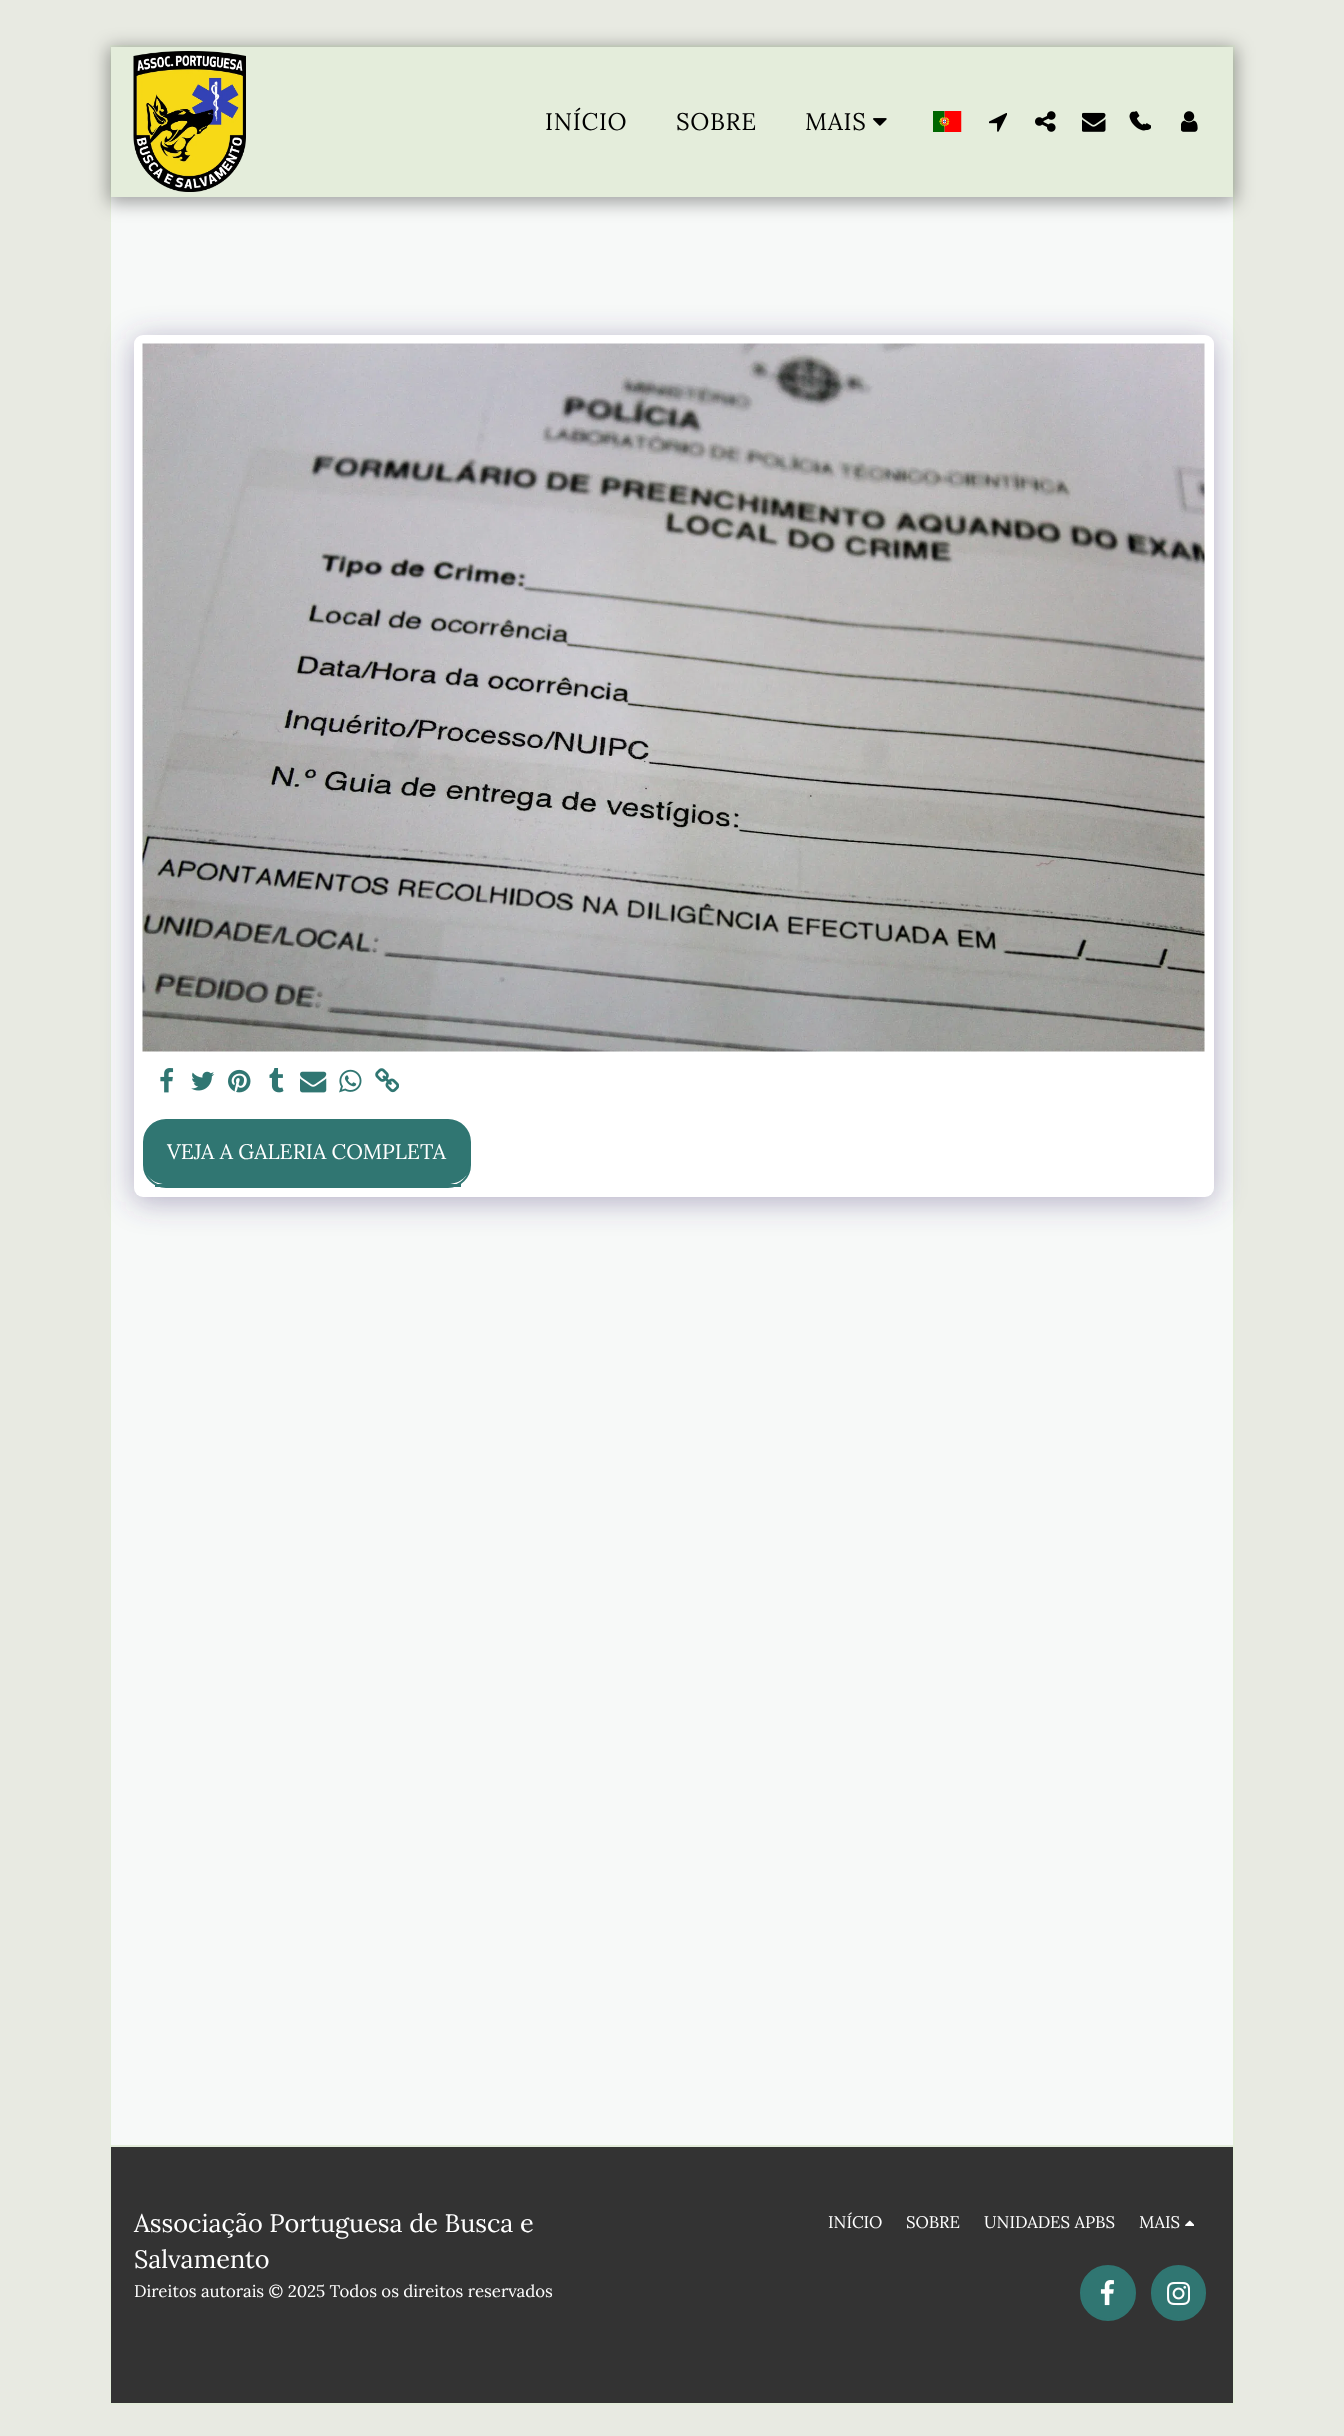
<svg xmlns="http://www.w3.org/2000/svg" width="1344" height="2436" viewBox="0 0 1344 2436">
  <defs>
    <filter id="blur1" x="-50%" y="-200%" width="200%" height="500%"><feGaussianBlur stdDeviation="9"/></filter>
    <filter id="blur2" x="-50%" y="-200%" width="200%" height="500%"><feGaussianBlur stdDeviation="15"/></filter>
  </defs>
  <rect width="100%" height="100%" fill="#e8eae2"/>
  <rect x="111" y="46" width="1123" height="2358" fill="none" stroke="#e4eddb" stroke-width="2"/>
  <rect x="111" y="197" width="1122" height="1948" fill="#f7f9f8"/>
  <rect x="108" y="47" width="1128" height="156" fill="#000000" fill-opacity="0.35" filter="url(#blur1)"/>
  <rect x="111" y="47" width="1122" height="150" fill="#e4eddb"/>
  <image x="133" y="51" width="113" height="141" href="img1.png"/>
  <text x="545" y="130" font-family="Lora" font-size="24" letter-spacing="0.75" fill="#000000">INÍCIO</text>
  <text x="676" y="130" font-family="Lora" font-size="24" letter-spacing="0.75" fill="#000000">SOBRE</text>
  <text x="805" y="130" font-family="Lora" font-size="24" letter-spacing="0.75" fill="#000000">MAIS</text>
  <image x="873" y="118" width="14" height="8" href="img2.png"/>
  <image x="933" y="111" width="29" height="21" href="img3.png"/>
  <image x="989" y="113" width="18" height="19" href="img4.png"/>
  <image x="1035" y="111" width="21" height="21" href="img5.png"/>
  <image x="1082" y="112" width="24" height="20" href="img6.png"/>
  <image x="1133" y="111" width="18" height="20" href="img7.png"/>
  <image x="1129" y="111" width="17" height="20" href="img8.png"/>
  <image x="1181" y="111" width="17" height="21" href="img9.png"/>
  <rect x="134" y="339" width="1080" height="863" rx="9" fill="#4d3f7a" fill-opacity="0.4" filter="url(#blur2)"/>
  <rect x="134" y="335" width="1080" height="862" rx="9" fill="#ffffff"/>
  <image x="142" y="343" width="1063" height="709" href="img10.png"/>
  <image x="160" y="1068" width="14" height="25" href="img11.png"/>
  <image x="191" y="1071" width="24" height="20" href="img12.png"/>
  <image x="228" y="1069" width="23" height="24" href="img13.png"/>
  <image x="269" y="1068" width="15" height="25" href="img14.png"/>
  <image x="300" y="1071" width="27" height="22" href="img15.png"/>
  <image x="339" y="1069" width="23" height="24" href="img16.png"/>
  <image x="375" y="1068" width="24" height="25" href="img17.png"/>
  <path d="M165 1120H448C460 1120 470 1130 470 1142V1166C470 1175 460 1184 448 1184H165C153 1184 144 1175 144 1166V1142C144 1130 153 1120 165 1120Z" fill="#307672"/>
  <rect x="144" y="1120" width="326" height="67" rx="22" fill="none" stroke="#307672" stroke-width="2"/>
  <rect x="155" y="1184" width="306" height="3" fill="#307672"/>
  <text x="167" y="1159" font-family="Lora" font-size="21" fill="#ffffff">VEJA A GALERIA COMPLETA</text>
  <rect x="111" y="2147" width="1122" height="256" fill="#333333"/>
  <rect x="111" y="2145" width="1122" height="2" fill="#e4eddb"/>
  <text x="134" y="2232" font-family="Lora" font-size="25.25" fill="#ffffff">Associação Portuguesa de Busca e</text>
  <text x="134" y="2268" font-family="Lora" font-size="25.25" fill="#ffffff">Salvamento</text>
  <text x="134" y="2297" font-family="Lora" font-size="16.8" fill="#ffffff">Direitos autorais © 2025 Todos os direitos reservados</text>
  <text x="828" y="2228" font-family="Lora" font-size="16.8" fill="#ffffff">INÍCIO</text>
  <text x="906" y="2228" font-family="Lora" font-size="16.8" fill="#ffffff">SOBRE</text>
  <text x="984" y="2228" font-family="Lora" font-size="16.8" fill="#ffffff">UNIDADES APBS</text>
  <text x="1139" y="2228" font-family="Lora" font-size="16.8" fill="#ffffff">MAIS</text>
  <image x="1185" y="2220" width="9" height="6" href="img18.png"/>
  <circle cx="1108" cy="2293" r="27" fill="#307672" stroke="#307672" stroke-width="2"/>
  <image x="1100" y="2280" width="14" height="26" href="img19.png"/>
  <rect x="1152" y="2266" width="53" height="54" rx="26.5" fill="#307672" stroke="#307672" stroke-width="2"/>
  <image x="1167" y="2281" width="23" height="25" href="img20.png"/>
</svg>
